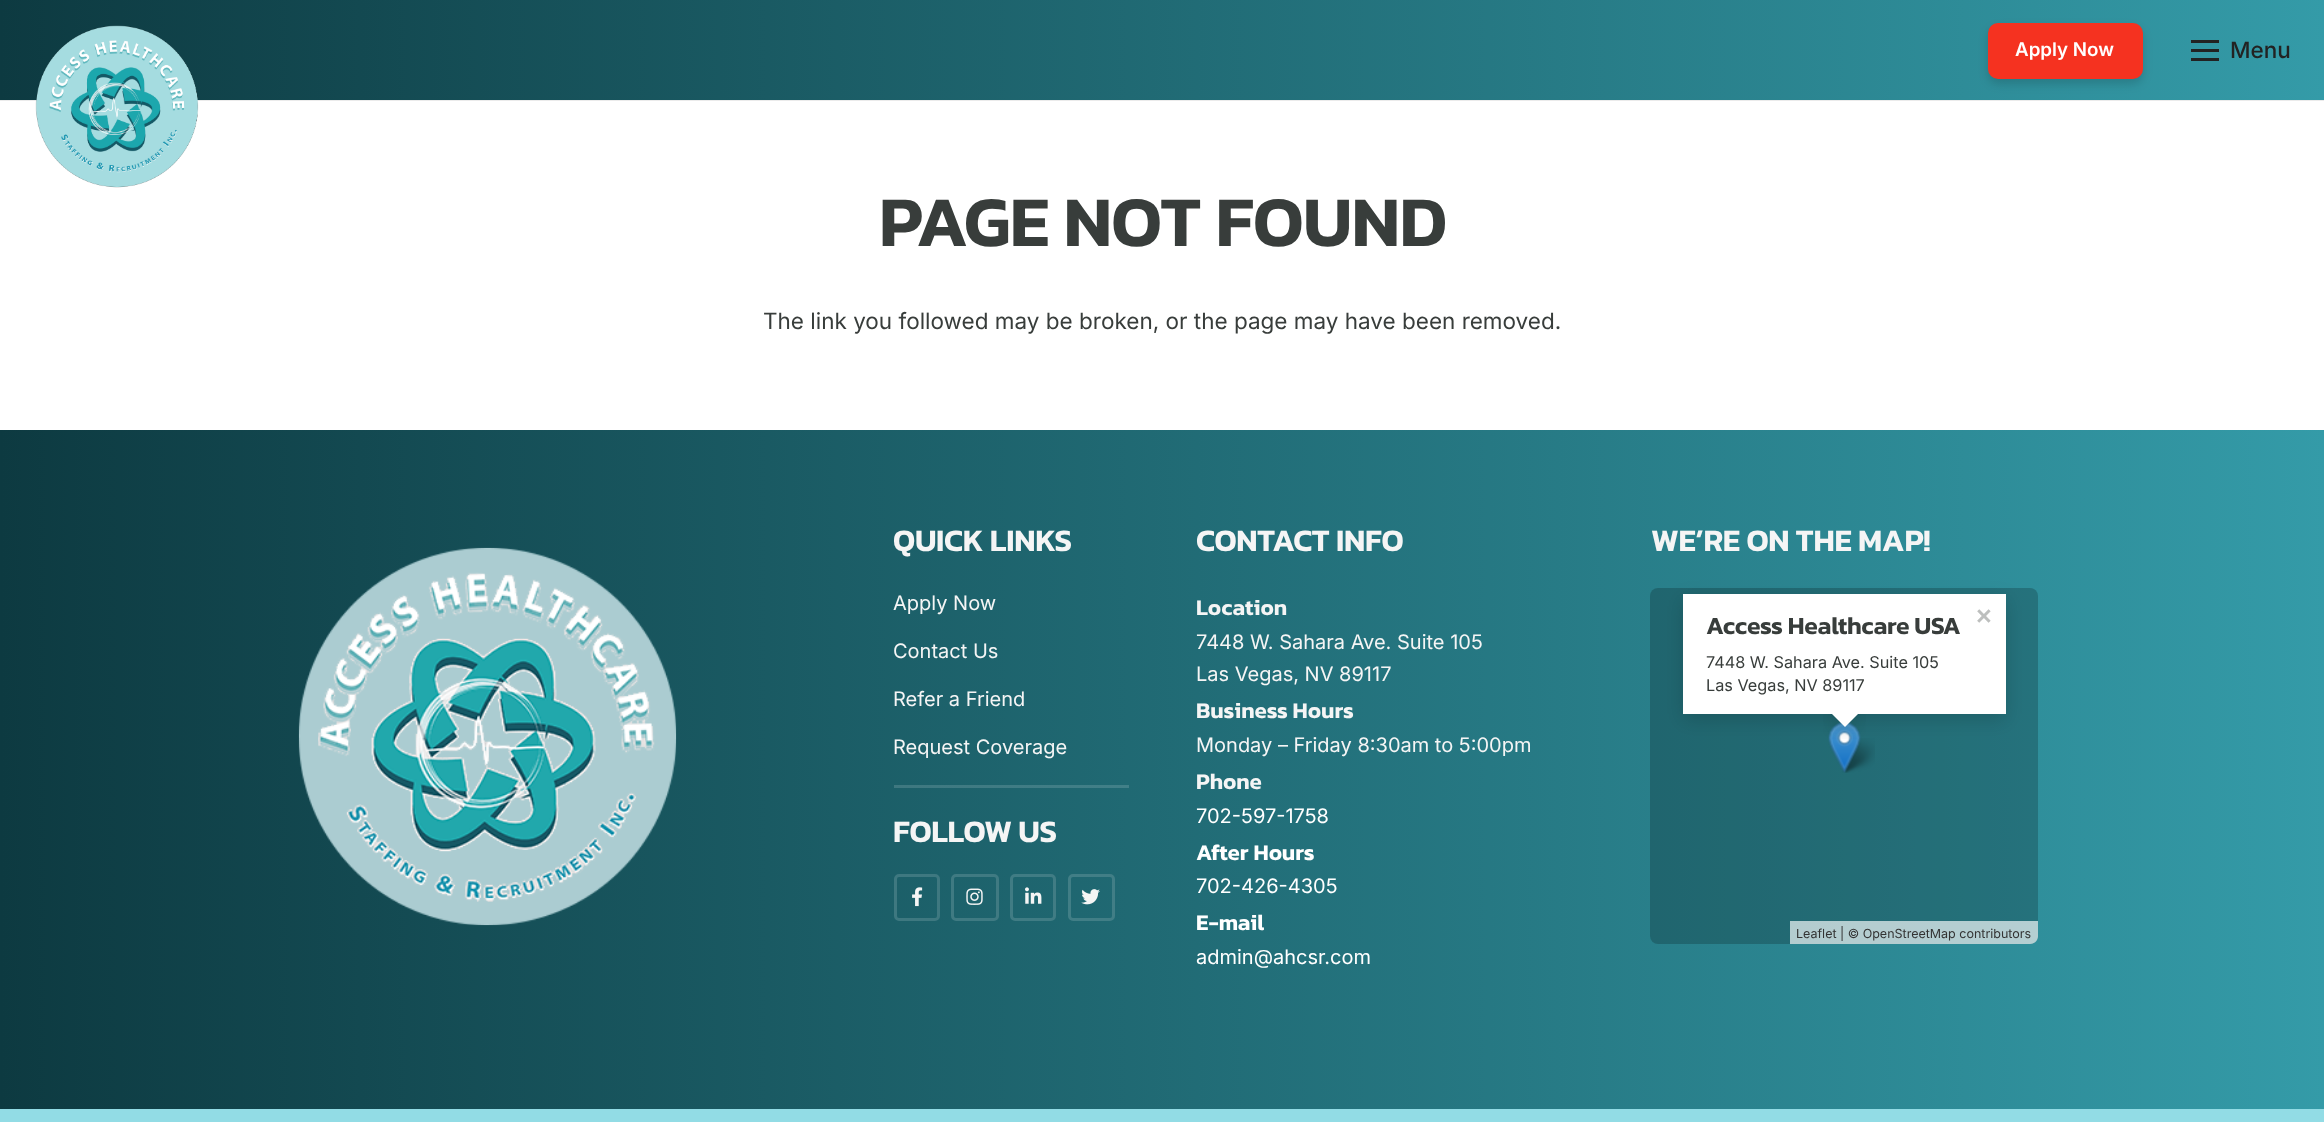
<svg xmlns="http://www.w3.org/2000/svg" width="2324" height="1122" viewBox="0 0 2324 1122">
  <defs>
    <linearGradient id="g1" gradientUnits="userSpaceOnUse" x1="0" y1="50" x2="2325" y2="50"><stop offset="0" stop-color="#0d3a41"/><stop offset="1" stop-color="#349ba8"/></linearGradient>
    <filter id="blur1" x="-50%" y="-200%" width="200%" height="500%"><feGaussianBlur stdDeviation="5"/></filter>
    <linearGradient id="g2" gradientUnits="userSpaceOnUse" x1="0" y1="769" x2="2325" y2="769"><stop offset="0" stop-color="#0d3a41"/><stop offset="1" stop-color="#349ba8"/></linearGradient>
    <linearGradient id="g3" gradientUnits="userSpaceOnUse" x1="0" y1="769" x2="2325" y2="769"><stop offset="0" stop-color="#31585e"/><stop offset="1" stop-color="#52aab5"/></linearGradient>
    <filter id="blur2" x="-50%" y="-200%" width="200%" height="500%"><feGaussianBlur stdDeviation="9.5"/></filter>
    <clipPath id="clip1"><rect x="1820" y="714" width="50" height="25"/></clipPath>
    <clipPath id="clip2"><rect x="1820" y="714" width="50" height="25"/></clipPath>
  </defs>
  <rect width="100%" height="100%" fill="#ffffff"/>
  <rect x="0" y="100" width="2324" height="1" fill="#ebebeb"/>
  <rect x="0" y="0" width="2324" height="100" fill="url(#g1)"/>
  <image x="35" y="25" width="164" height="163" href="img1.png"/>
  <rect x="1988" y="28" width="155" height="56" rx="10" fill="#000000" fill-opacity="0.15" filter="url(#blur1)"/>
  <rect x="1988" y="23" width="155" height="56" rx="10" fill="#f53220"/>
  <text x="2015" y="56" font-family="Inter" font-size="18.75" font-weight="600" fill="#ffffff">Apply Now</text>
  <rect x="2191" y="49" width="28" height="3" fill="#222222"/>
  <rect x="2191" y="40" width="28" height="3" fill="#222222"/>
  <rect x="2191" y="58" width="28" height="3" fill="#222222"/>
  <text x="2230" y="58" font-family="Inter" font-size="22.5" font-weight="500" fill="#222222">Menu</text>
  <text x="879" y="246" font-family="Kanit" font-size="72" font-weight="600" letter-spacing="-0.75" fill="#383d3b">PAGE NOT FOUND</text>
  <text x="763" y="329" font-family="Inter" font-size="22.5" fill="#383d3b">The link you followed may be broken, or the page may have been removed.</text>
  <rect x="0" y="430" width="2324" height="679" fill="url(#g2)"/>
  <rect x="894" y="785" width="235" height="3" fill="url(#g3)"/>
  <image x="298" y="547" width="379" height="379" href="img2.png"/>
  <text x="893" y="551" font-family="Kanit" font-size="31.5" font-weight="600" letter-spacing="-0.3" fill="#f5f5f5">QUICK LINKS</text>
  <text x="893" y="610" font-family="Inter" font-size="20" fill="#f5f5f5">Apply Now</text>
  <text x="893" y="658" font-family="Inter" font-size="20" fill="#f5f5f5">Contact Us</text>
  <text x="893" y="706" font-family="Inter" font-size="20" fill="#f5f5f5">Refer a Friend</text>
  <text x="893" y="754" font-family="Inter" font-size="20" fill="#f5f5f5">Request Coverage</text>
  <text x="893" y="842" font-family="Kanit" font-size="31.5" font-weight="600" letter-spacing="-0.3" fill="#f5f5f5">FOLLOW US</text>
  <rect x="895.5" y="875.5" width="43" height="44" rx="3.5" fill="none" stroke="#3e7880" stroke-width="3"/>
  <image x="912" y="887" width="11" height="20" href="img3.png"/>
  <rect x="952.5" y="875.5" width="45" height="44" rx="3.5" fill="none" stroke="#3f7a82" stroke-width="3"/>
  <image x="966" y="888" width="17" height="17" href="img4.png"/>
  <rect x="1011.5" y="875.5" width="43" height="44" rx="3.5" fill="none" stroke="#407c84" stroke-width="3"/>
  <image x="1025" y="887" width="17" height="17" href="img5.png"/>
  <rect x="1069.5" y="875.5" width="44" height="44" rx="3.5" fill="none" stroke="#417e86" stroke-width="3"/>
  <image x="1081" y="889" width="19" height="16" href="img6.png"/>
  <text x="1196" y="551" font-family="Kanit" font-size="31.5" font-weight="600" letter-spacing="-0.3" fill="#f5f5f5">CONTACT INFO</text>
  <text x="1196" y="615" font-family="Kanit" font-size="22.5" font-weight="600" fill="#f5f5f5">Location</text>
  <text x="1196" y="649" font-family="Inter" font-size="20" fill="#f5f5f5">7448 W. Sahara Ave. Suite 105</text>
  <text x="1196" y="681" font-family="Inter" font-size="20" fill="#f5f5f5">Las Vegas, NV 89117</text>
  <text x="1196" y="718" font-family="Kanit" font-size="22.5" font-weight="600" fill="#f5f5f5">Business Hours</text>
  <text x="1196" y="752" font-family="Inter" font-size="20" fill="#f5f5f5">Monday – Friday 8:30am to 5:00pm</text>
  <text x="1196" y="789" font-family="Kanit" font-size="22.5" font-weight="600" fill="#f5f5f5">Phone</text>
  <text x="1196" y="823" font-family="Inter" font-size="20" fill="#ffffff">702-597-1758</text>
  <text x="1196" y="860" font-family="Kanit" font-size="22.5" font-weight="600" fill="#ffffff">After Hours</text>
  <text x="1196" y="893" font-family="Inter" font-size="20" fill="#ffffff">702-426-4305</text>
  <text x="1196" y="930" font-family="Kanit" font-size="22.5" font-weight="600" fill="#ffffff">E-mail</text>
  <text x="1196" y="964" font-family="Inter" font-size="20" fill="#ffffff">admin@ahcsr.com</text>
  <text x="1651" y="551" font-family="Kanit" font-size="31.5" font-weight="600" letter-spacing="-0.3" fill="#f5f5f5">WE’RE ON THE MAP!</text>
  <rect x="1650" y="588" width="388" height="356" rx="8" fill="#000000" fill-opacity="0.2"/>
  <image x="1840" y="738" width="35" height="35" href="img8.png"/>
  <image x="1828" y="722" width="33" height="51" href="img7.png"/>
  <rect x="1683" y="600" width="323" height="120" fill="#000000" fill-opacity="0.15" filter="url(#blur2)"/>
  <rect x="1683" y="594" width="323" height="120" fill="#ffffff"/>
  <text x="1706" y="634" font-family="Kanit" font-size="24.75" font-weight="600" letter-spacing="-0.25" fill="#383d3b">Access Healthcare USA</text>
  <text x="1706" y="668" font-family="Inter" font-size="16.25" fill="#383d3b">7448 W. Sahara Ave. Suite 105</text>
  <text x="1706" y="691" font-family="Inter" font-size="16.25" fill="#383d3b">Las Vegas, NV 89117</text>
  <text x="1976" y="625" font-family="Liberation Sans" font-size="27" font-weight="bold" fill="#bdbfbe">×</text>
  <g clip-path="url(#clip1)">
    <rect x="1834" y="708" width="21" height="21" fill="#000000" fill-opacity="0.15" filter="url(#blur2)"/>
  </g>
  <g clip-path="url(#clip2)">
    <path d="M1845 697L1860 712L1845 727L1830 712Z" fill="#ffffff"/>
  </g>
  <path d="M1790 921H2038V936C2038 940.5 2034.5 944 2030 944H1790Z" fill="#ffffff" fill-opacity="0.66"/>
  <text x="1796" y="938" font-family="Inter" font-size="12.5" fill="#333333">Leaflet | © OpenStreetMap contributors</text>
  <rect x="0" y="1109" width="2324" height="13" fill="#92dce5"/>
</svg>
